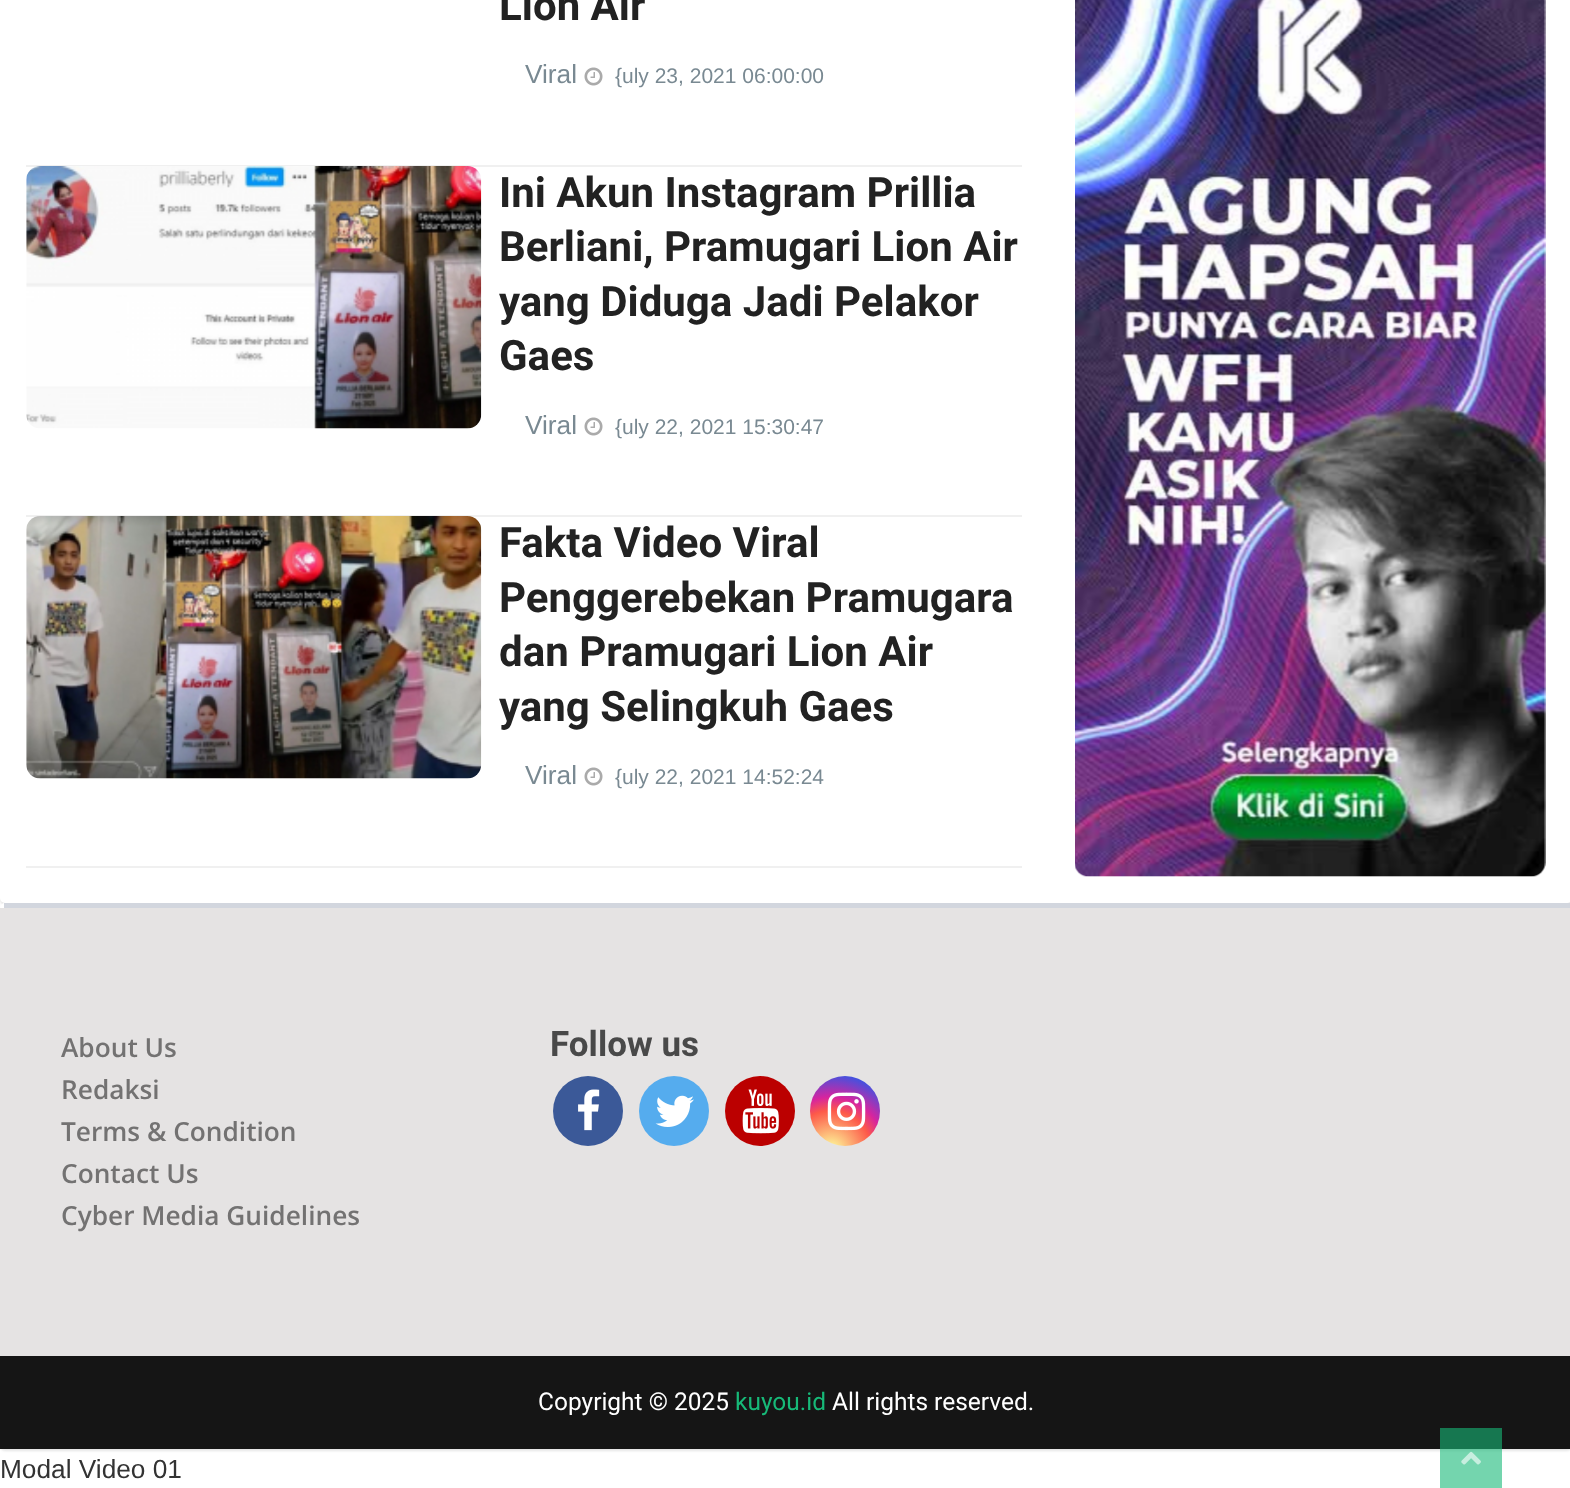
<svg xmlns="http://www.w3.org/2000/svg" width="1570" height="1488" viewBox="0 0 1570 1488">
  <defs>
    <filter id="blur1" x="-50%" y="-200%" width="200%" height="500%"><feGaussianBlur stdDeviation="1"/></filter>
    <radialGradient id="g1" gradientUnits="userSpaceOnUse" cx="831" cy="1151" r="90"><stop offset="0" stop-color="#fdf497"/><stop offset="0.05" stop-color="#fdf497"/><stop offset="0.45" stop-color="#fd5949"/><stop offset="0.6" stop-color="#d6249f"/><stop offset="0.9" stop-color="#285aeb"/></radialGradient>
  </defs>
  <rect width="100%" height="100%" fill="#ffffff"/>
  <rect x="0" y="-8" width="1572" height="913" rx="5" fill="#000000" fill-opacity="0.1" filter="url(#blur1)"/>
  <rect x="0" y="-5" width="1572" height="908" rx="5" fill="#ffffff"/>
  <rect x="26" y="165" width="996" height="2" fill="#f0f0f0"/>
  <text x="499" y="20" font-family="Roboto" font-size="42" font-weight="bold" fill="#222222">Lion Air</text>
  <text x="525" y="83" font-family="Liberation Sans" font-size="26.25" fill="#798992">Viral</text>
  <image x="584" y="67" width="19" height="19" href="img1.png"/>
  <text x="615" y="83" font-family="Liberation Sans" font-size="21" fill="#798992">{uly 23, 2021 06:00:00</text>
  <rect x="26" y="515" width="996" height="2" fill="#f0f0f0"/>
  <image x="26" y="166" width="456" height="263" href="img2.png"/>
  <text x="499" y="207" font-family="Roboto" font-size="42" font-weight="bold" fill="#222222">Ini Akun Instagram Prillia</text>
  <text x="499" y="261" font-family="Roboto" font-size="42" font-weight="bold" fill="#222222">Berliani, Pramugari Lion Air</text>
  <text x="499" y="316" font-family="Roboto" font-size="42" font-weight="bold" fill="#222222">yang Diduga Jadi Pelakor</text>
  <text x="499" y="370" font-family="Roboto" font-size="42" font-weight="bold" fill="#222222">Gaes</text>
  <text x="525" y="434" font-family="Liberation Sans" font-size="26.25" fill="#798992">Viral</text>
  <image x="584" y="417" width="19" height="19" href="img1.png"/>
  <text x="615" y="434" font-family="Liberation Sans" font-size="21" fill="#798992">{uly 22, 2021 15:30:47</text>
  <rect x="26" y="866" width="996" height="2" fill="#f0f0f0"/>
  <image x="26" y="516" width="456" height="263" href="img3.png"/>
  <text x="499" y="557" font-family="Roboto" font-size="42" font-weight="bold" fill="#222222">Fakta Video Viral</text>
  <text x="499" y="612" font-family="Roboto" font-size="42" font-weight="bold" fill="#222222">Penggerebekan Pramugara</text>
  <text x="499" y="666" font-family="Roboto" font-size="42" font-weight="bold" fill="#222222">dan Pramugari Lion Air</text>
  <text x="499" y="721" font-family="Roboto" font-size="42" font-weight="bold" fill="#222222">yang Selingkuh Gaes</text>
  <text x="525" y="784" font-family="Liberation Sans" font-size="26.25" fill="#798992">Viral</text>
  <image x="584" y="767" width="19" height="19" href="img1.png"/>
  <text x="615" y="784" font-family="Liberation Sans" font-size="21" fill="#798992">{uly 22, 2021 14:52:24</text>
  <image x="1075" y="0" width="471" height="877" href="img4.png"/>
  <rect x="0" y="905" width="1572" height="546" rx="5" fill="#000000" fill-opacity="0.1" filter="url(#blur1)"/>
  <rect x="0" y="903" width="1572" height="546" rx="5" fill="#ffffff"/>
  <rect x="4" y="903" width="1566" height="5" fill="#d2d6de"/>
  <rect x="0" y="908" width="1570" height="448" fill="#e5e3e3"/>
  <text x="61" y="1057" font-family="Open Sans" font-size="26.25" font-weight="600" fill="#737272">About Us</text>
  <text x="61" y="1099" font-family="Open Sans" font-size="26.25" font-weight="600" fill="#737272">Redaksi</text>
  <text x="61" y="1141" font-family="Open Sans" font-size="26.25" font-weight="600" fill="#737272">Terms &amp; Condition</text>
  <text x="61" y="1183" font-family="Open Sans" font-size="26.25" font-weight="600" fill="#737272">Contact Us</text>
  <text x="61" y="1225" font-family="Open Sans" font-size="26.25" font-weight="600" fill="#737272">Cyber Media Guidelines</text>
  <text x="550" y="1056" font-family="Roboto" font-size="35" font-weight="bold" fill="#494949">Follow us</text>
  <circle cx="588" cy="1111" r="35" fill="#3b5998"/>
  <image x="578" y="1089" width="22" height="42" href="img5.png"/>
  <circle cx="674" cy="1111" r="35" fill="#55acee"/>
  <image x="655" y="1095" width="39" height="32" href="img6.png"/>
  <circle cx="760" cy="1111" r="35" fill="#bb0000"/>
  <image x="742" y="1089" width="37" height="45" href="img7.png"/>
  <circle cx="845" cy="1111" r="35" fill="url(#g1)"/>
  <image x="827" y="1092" width="39" height="39" href="img8.png"/>
  <rect x="0" y="1356" width="1570" height="93" fill="#151515"/>
  <text x="538" y="1410" font-family="Roboto" font-size="24.5" fill="#ffffff">Copyright © 2025</text>
  <text x="735" y="1410" font-family="Roboto" font-size="24.5" fill="#17b978">kuyou.id</text>
  <text x="832" y="1410" font-family="Roboto" font-size="24.5" fill="#ffffff">All rights reserved.</text>
  <text x="0" y="1478" font-family="Liberation Sans" font-size="26.25" fill="#333333">Modal Video 01</text>
  <rect x="1440" y="1428" width="62" height="60" fill="#17b978" fill-opacity="0.6"/>
  <image x="1461" y="1451" width="20" height="14" href="img9.png"/>
</svg>
